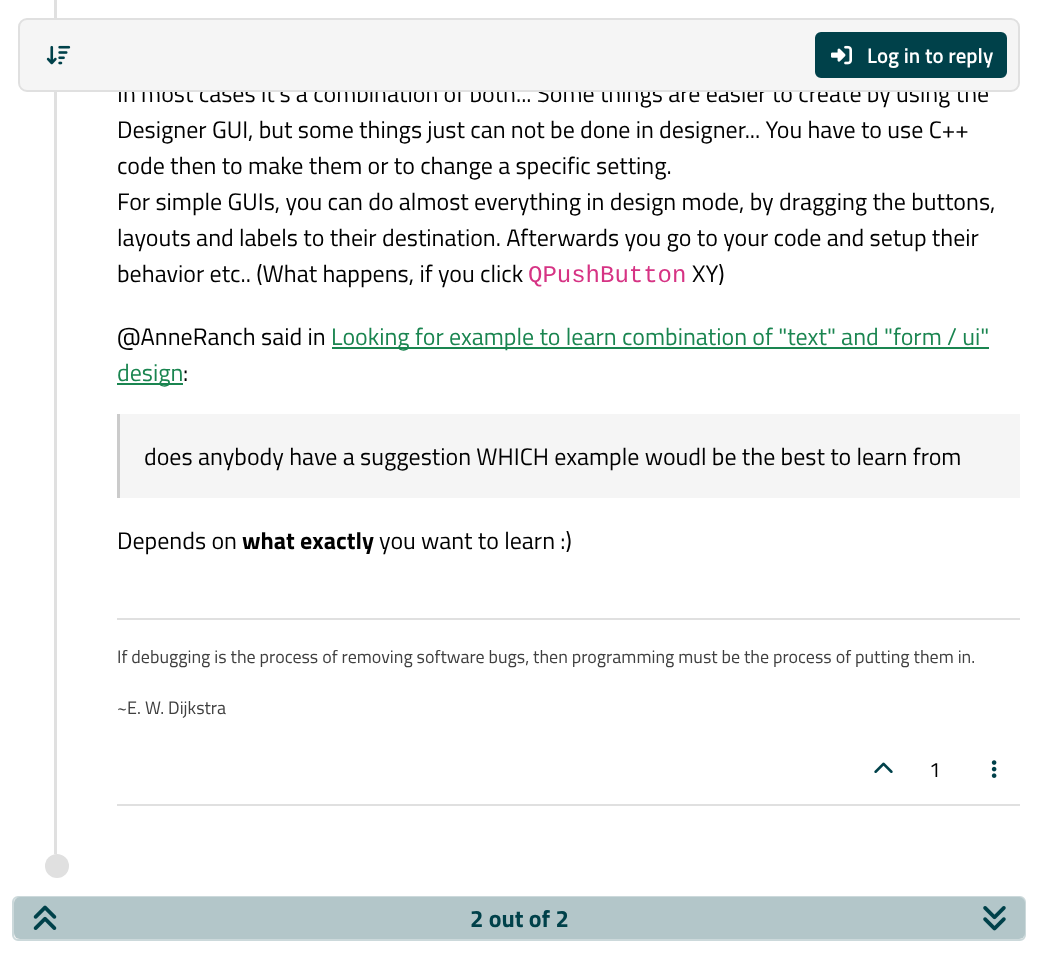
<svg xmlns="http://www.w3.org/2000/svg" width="1038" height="958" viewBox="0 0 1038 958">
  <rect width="100%" height="100%" fill="#ffffff"/>
  <rect x="54" y="0" width="3" height="854" fill="#e0e0e0"/>
  <text x="117" y="102" font-family="Titillium Web" font-size="24" fill="#000000">In most cases it's a combination of both... Some things are easier to create by using the</text>
  <rect x="19" y="19" width="1000" height="72" rx="8" fill="#f5f5f5" stroke="#e0e0e0" stroke-width="2"/>
  <image x="46" y="45" width="25" height="20" href="img1.png"/>
  <rect x="816" y="33" width="190" height="44" rx="5" fill="#00414a" stroke="#00414a" stroke-width="2"/>
  <image x="831" y="45" width="21" height="20" href="img2.png"/>
  <text x="867" y="63" font-family="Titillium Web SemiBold" font-size="21" font-weight="600" fill="#ffffff">Log in to reply</text>
  <text x="117" y="138" font-family="Titillium Web" font-size="24" fill="#000000">Designer GUI, but some things just can not be done in designer... You have to use C++</text>
  <text x="117" y="174" font-family="Titillium Web" font-size="24" fill="#000000">code then to make them or to change a specific setting.</text>
  <text x="117" y="210" font-family="Titillium Web" font-size="24" fill="#000000">For simple GUIs, you can do almost everything in design mode, by dragging the buttons,</text>
  <text x="117" y="246" font-family="Titillium Web" font-size="24" fill="#000000">layouts and labels to their destination. Afterwards you go to your code and setup their</text>
  <text x="117" y="282" font-family="Titillium Web" font-size="24" fill="#000000">behavior etc.. (What happens, if you click</text>
  <text x="528" y="282" font-family="Liberation Mono" font-size="24" fill="#d63384">QPushButton</text>
  <text x="692" y="282" font-family="Titillium Web" font-size="24" fill="#000000">XY)</text>
  <text x="117" y="345" font-family="Titillium Web" font-size="24" fill="#000000">@AnneRanch said in</text>
  <rect x="332" y="347" width="657" height="2" fill="#1a8550"/>
  <text x="331" y="345" font-family="Titillium Web" font-size="24" fill="#1a8550">Looking for example to learn combination of "text" and "form / ui"</text>
  <rect x="117" y="383" width="66" height="2" fill="#1a8550"/>
  <text x="117" y="381" font-family="Titillium Web" font-size="24" fill="#1a8550">design</text>
  <text x="183" y="381" font-family="Titillium Web" font-size="24" fill="#000000">:</text>
  <rect x="120" y="414" width="900" height="84" fill="#f5f5f5"/>
  <rect x="117" y="414" width="3" height="84" fill="#cbcbcb"/>
  <text x="144" y="465" font-family="Titillium Web" font-size="24" fill="#000000">does anybody have a suggestion WHICH example woudl be the best to learn from</text>
  <text x="117" y="549" font-family="Titillium Web" font-size="24" fill="#000000">Depends on</text>
  <text x="242" y="549" font-family="Titillium Web" font-size="24" font-weight="bold" fill="#000000">what exactly</text>
  <text x="379" y="549" font-family="Titillium Web" font-size="24" fill="#000000">you want to learn :)</text>
  <rect x="117" y="804" width="903" height="2" fill="#e0e0e0"/>
  <rect x="117" y="618" width="903" height="2" fill="#e0e0e0"/>
  <text x="117" y="663" font-family="Titillium Web" font-size="18" fill="#404040">If debugging is the process of removing software bugs, then programming must be the process of putting them in.</text>
  <text x="117" y="714" font-family="Titillium Web" font-size="18" fill="#404040">~E. W. Dijkstra</text>
  <image x="874" y="762" width="19" height="11" href="img3.png"/>
  <text x="929" y="777" font-family="Titillium Web" font-size="21" fill="#000000">1</text>
  <image x="991" y="760" width="6" height="18" href="img4.png"/>
  <circle cx="57" cy="866" r="12" fill="#e0e0e0"/>
  <rect x="13" y="897" width="1012" height="43" rx="5" fill="#f5f5f5" stroke="#ccd9db" stroke-width="2"/>
  <rect x="14" y="897" width="1011" height="42" rx="6" fill="#b3c6c9"/>
  <image x="33" y="905" width="24" height="25" href="img5.png"/>
  <text x="470" y="927" font-family="Titillium Web" font-size="24" font-weight="bold" fill="#00414a">2 out of 2</text>
  <image x="983" y="906" width="23" height="25" href="img6.png"/>
</svg>
